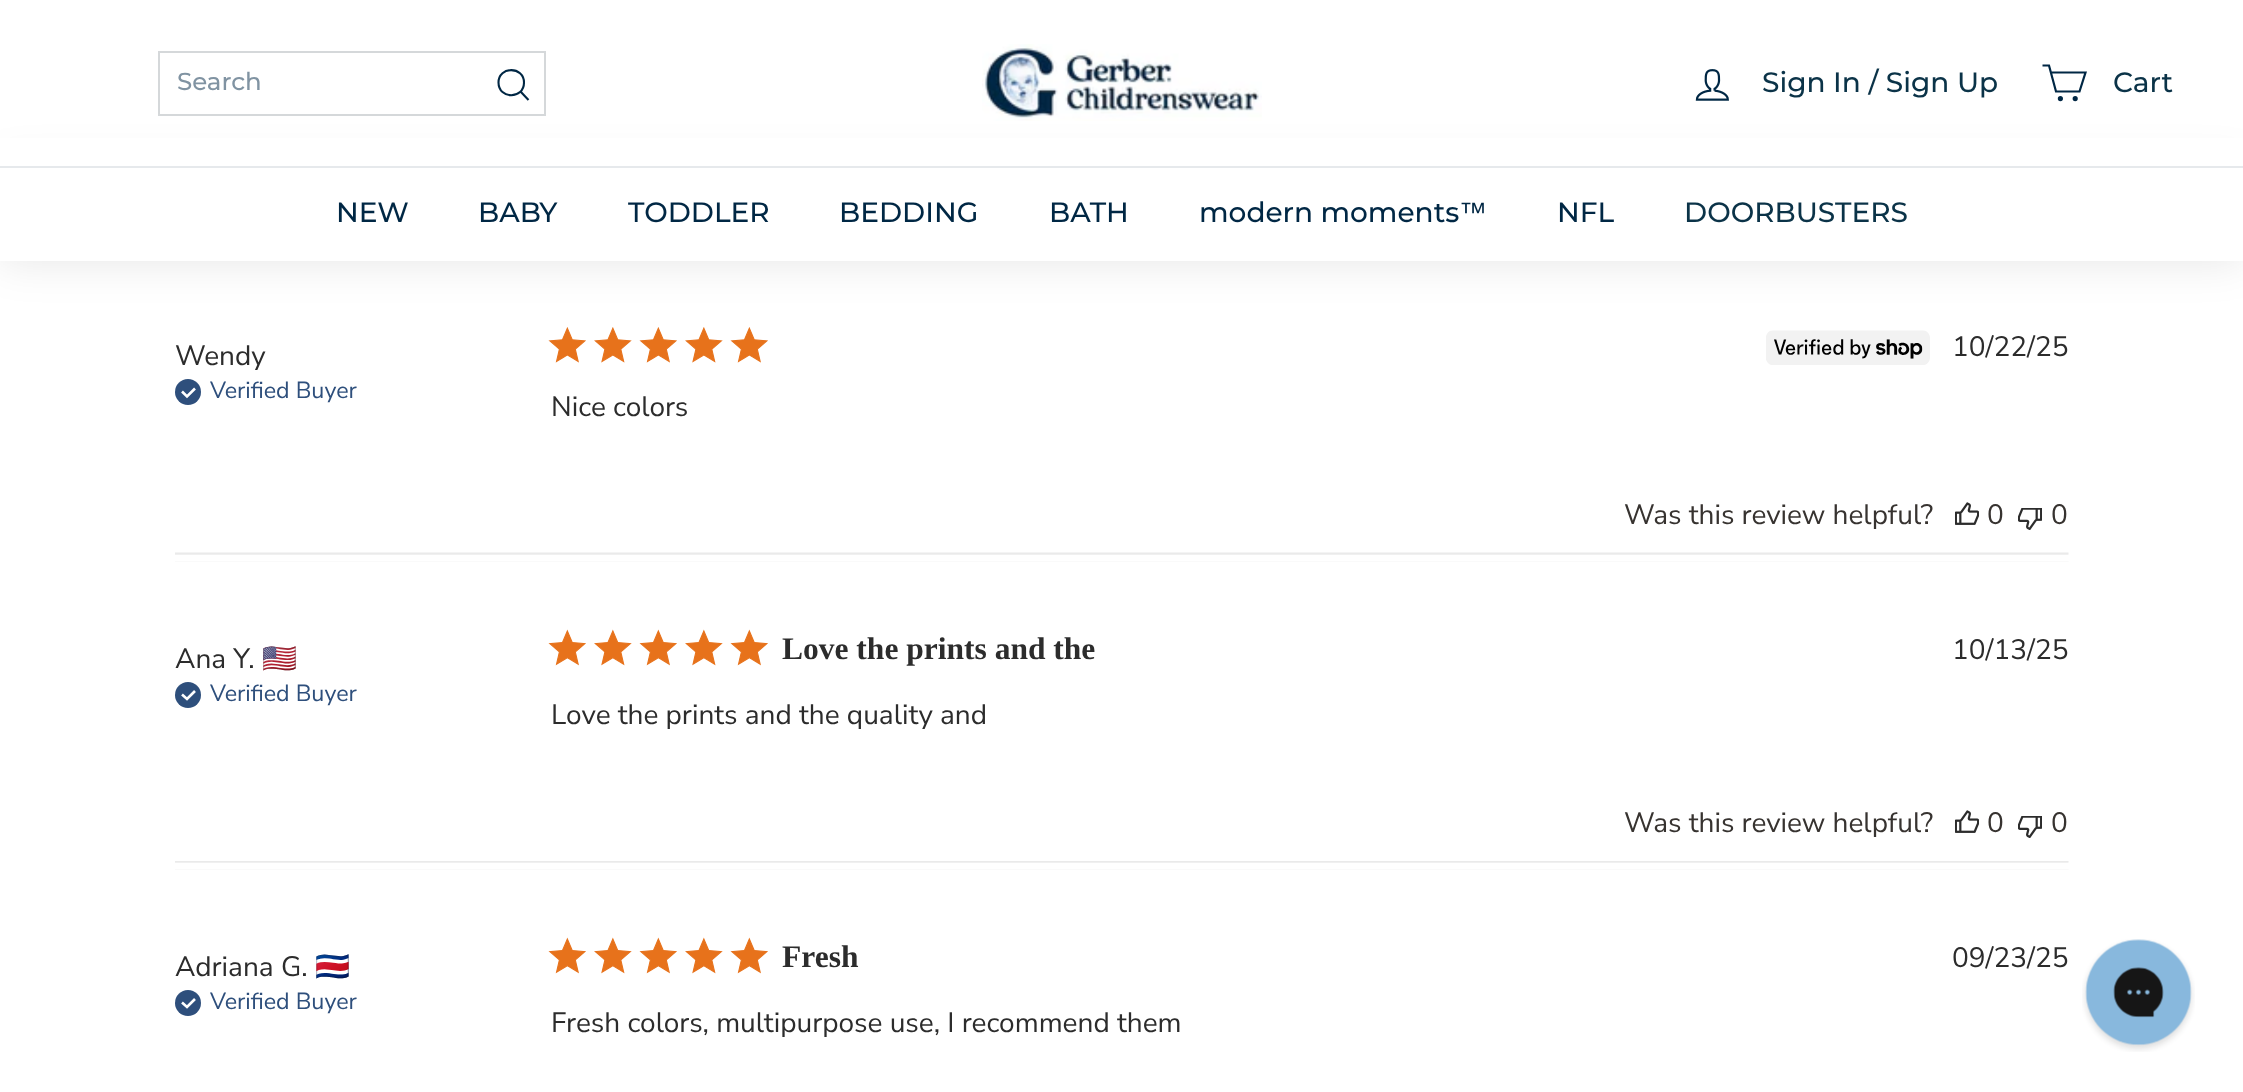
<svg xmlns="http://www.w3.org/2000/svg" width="2243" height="1092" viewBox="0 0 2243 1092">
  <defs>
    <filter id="blur1" x="-50%" y="-200%" width="200%" height="500%"><feGaussianBlur stdDeviation="22"/></filter>
  </defs>
  <rect width="100%" height="100%" fill="#ffffff"/>
  <image x="548" y="327" width="38" height="36" href="img4.png"/>
  <image x="594" y="327" width="38" height="36" href="img5.png"/>
  <image x="639" y="327" width="38" height="36" href="img4.png"/>
  <image x="685" y="327" width="38" height="36" href="img5.png"/>
  <image x="730" y="327" width="38" height="36" href="img4.png"/>
  <rect x="0" y="166" width="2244" height="95" fill="#000000" fill-opacity="0.1" filter="url(#blur1)"/>
  <rect x="0" y="138" width="2243" height="28" fill="#ffffff"/>
  <rect x="159" y="52" width="386" height="63" fill="none" stroke="#d5d8da" stroke-width="2"/>
  <text x="177" y="90" font-family="Montserrat" font-size="24.5" font-weight="500" fill="#8093a2">Search</text>
  <path d="M524 82.5C524 99.5 498.5 99.5 498.5 82.5C498.5 66 524 66 524 82.5M528.5 100L520.5 91.5" fill="none" stroke="#002744" stroke-width="2.1"/>
  <image x="982" y="44" width="280" height="77" href="img1.png"/>
  <image x="1695" y="69" width="34" height="32" href="img2.png"/>
  <text x="1762" y="92" font-family="Montserrat" font-size="28" font-weight="500" fill="#0b3348">Sign In / Sign Up</text>
  <path d="M2051 72.5H2085.5L2079.5 91.5H2056L2049 65.5H2042.5" fill="none" stroke="#002744" stroke-width="2.2"/>
  <circle cx="2060.4" cy="98.6" r="1.5" fill="#002744" stroke="#002744" stroke-width="2.2"/>
  <circle cx="2075.2" cy="98.6" r="1.5" fill="#002744" stroke="#002744" stroke-width="2.2"/>
  <text x="2113" y="92" font-family="Montserrat" font-size="28" font-weight="500" fill="#0b3348">Cart</text>
  <rect x="0" y="168" width="2243" height="93" fill="#ffffff"/>
  <rect x="0" y="166" width="2243" height="2" fill="#e6e9ec"/>
  <text x="336" y="222" font-family="Montserrat" font-size="28" font-weight="500" fill="#002744">NEW</text>
  <text x="478" y="222" font-family="Montserrat" font-size="28" font-weight="500" fill="#002744">BABY</text>
  <text x="628" y="222" font-family="Montserrat" font-size="28" font-weight="500" fill="#002744">TODDLER</text>
  <text x="839" y="222" font-family="Montserrat" font-size="28" font-weight="500" fill="#002744">BEDDING</text>
  <text x="1049" y="222" font-family="Montserrat" font-size="28" font-weight="500" fill="#002744">BATH</text>
  <text x="1199" y="222" font-family="Montserrat" font-size="28" font-weight="500" fill="#002744">modern moments</text>
  <text x="1459" y="222" font-family="Liberation Sans" font-size="28" fill="#002744">™</text>
  <text x="1557" y="222" font-family="Montserrat" font-size="28" font-weight="500" fill="#002744">NFL</text>
  <text x="1684" y="222" font-family="Montserrat" font-size="28" font-weight="500" fill="#0b3348">DOORBUSTERS</text>
  <text x="175" y="365" font-family="Nunito Sans" font-size="28" font-weight="200" fill="#2c2c2c">Wendy</text>
  <circle cx="188" cy="392" r="13" fill="#2e4f7c"/>
  <path d="M182 391.5L187 396.5L195 388.5" fill="none" stroke="#ffffff" stroke-width="2.6"/>
  <text x="210" y="398" font-family="Nunito Sans" font-size="23.25" font-weight="200" fill="#2e4f7c">Verified Buyer</text>
  <image x="1766" y="330" width="164" height="35" href="img3.png"/>
  <text x="1952" y="356" font-family="Nunito Sans" font-size="28" font-weight="200" fill="#2c2c2c">10/22/25</text>
  <text x="551" y="416" font-family="Nunito Sans" font-size="28" font-weight="200" fill="#2c2c2c">Nice colors</text>
  <text x="1624" y="524" font-family="Nunito Sans" font-size="28" font-weight="200" fill="#373330">Was this review helpful?</text>
  <image x="1955" y="502" width="24" height="23" href="img6.png"/>
  <text x="1987" y="524" font-family="Nunito Sans" font-size="28" font-weight="200" fill="#373330">0</text>
  <image x="2018" y="508" width="24" height="22" href="img7.png"/>
  <text x="2051" y="524" font-family="Nunito Sans" font-size="28" font-weight="200" fill="#373330">0</text>
  <image x="175" y="552" width="1894" height="10" href="img8.png"/>
  <text x="175" y="668" font-family="Nunito Sans" font-size="28" font-weight="200" fill="#2c2c2c">Ana Y.</text>
  <text x="262" y="668" font-family="Noto Color Emoji" font-size="28" fill="#2c2c2c">🇺🇸</text>
  <circle cx="188" cy="695" r="13" fill="#2e4f7c"/>
  <path d="M182 694.5L187 699L195 691" fill="none" stroke="#ffffff" stroke-width="2.6"/>
  <text x="210" y="701" font-family="Nunito Sans" font-size="23.25" font-weight="200" fill="#2e4f7c">Verified Buyer</text>
  <image x="548" y="629" width="38" height="37" href="img9.png"/>
  <image x="594" y="629" width="38" height="37" href="img10.png"/>
  <image x="639" y="629" width="38" height="37" href="img9.png"/>
  <image x="685" y="629" width="38" height="37" href="img10.png"/>
  <image x="730" y="629" width="38" height="37" href="img9.png"/>
  <text x="782" y="659" font-family="Liberation Serif" font-size="31.5" font-weight="bold" fill="#2c2c2c">Love the prints and the</text>
  <text x="551" y="724" font-family="Nunito Sans" font-size="28" font-weight="200" fill="#2c2c2c">Love the prints and the quality and</text>
  <text x="1952" y="659" font-family="Nunito Sans" font-size="28" font-weight="200" fill="#2c2c2c">10/13/25</text>
  <text x="1624" y="832" font-family="Nunito Sans" font-size="28" font-weight="200" fill="#373330">Was this review helpful?</text>
  <image x="1955" y="810" width="24" height="23" href="img6.png"/>
  <text x="1987" y="832" font-family="Nunito Sans" font-size="28" font-weight="200" fill="#373330">0</text>
  <image x="2018" y="816" width="24" height="22" href="img7.png"/>
  <text x="2051" y="832" font-family="Nunito Sans" font-size="28" font-weight="200" fill="#373330">0</text>
  <image x="175" y="861" width="1894" height="9" href="img11.png"/>
  <text x="175" y="976" font-family="Nunito Sans" font-size="28" font-weight="200" fill="#2c2c2c">Adriana G.</text>
  <text x="315" y="976" font-family="Noto Color Emoji" font-size="28" fill="#2c2c2c">🇨🇷</text>
  <circle cx="188" cy="1003" r="13" fill="#2e4f7c"/>
  <path d="M182 1002.5L187 1007L195 999" fill="none" stroke="#ffffff" stroke-width="2.6"/>
  <text x="210" y="1009" font-family="Nunito Sans" font-size="23.25" font-weight="200" fill="#2e4f7c">Verified Buyer</text>
  <image x="548" y="937" width="38" height="37" href="img9.png"/>
  <image x="594" y="937" width="38" height="37" href="img10.png"/>
  <image x="639" y="937" width="38" height="37" href="img9.png"/>
  <image x="685" y="937" width="38" height="37" href="img10.png"/>
  <image x="730" y="937" width="38" height="37" href="img9.png"/>
  <text x="782" y="967" font-family="Liberation Serif" font-size="31.5" font-weight="bold" fill="#2c2c2c">Fresh</text>
  <text x="551" y="1032" font-family="Nunito Sans" font-size="28" font-weight="200" fill="#2c2c2c">Fresh colors, multipurpose use, I recommend them</text>
  <text x="1952" y="967" font-family="Nunito Sans" font-size="28" font-weight="200" fill="#2c2c2c">09/23/25</text>
  <image x="2082" y="939" width="113" height="113" href="img12.png"/>
</svg>
